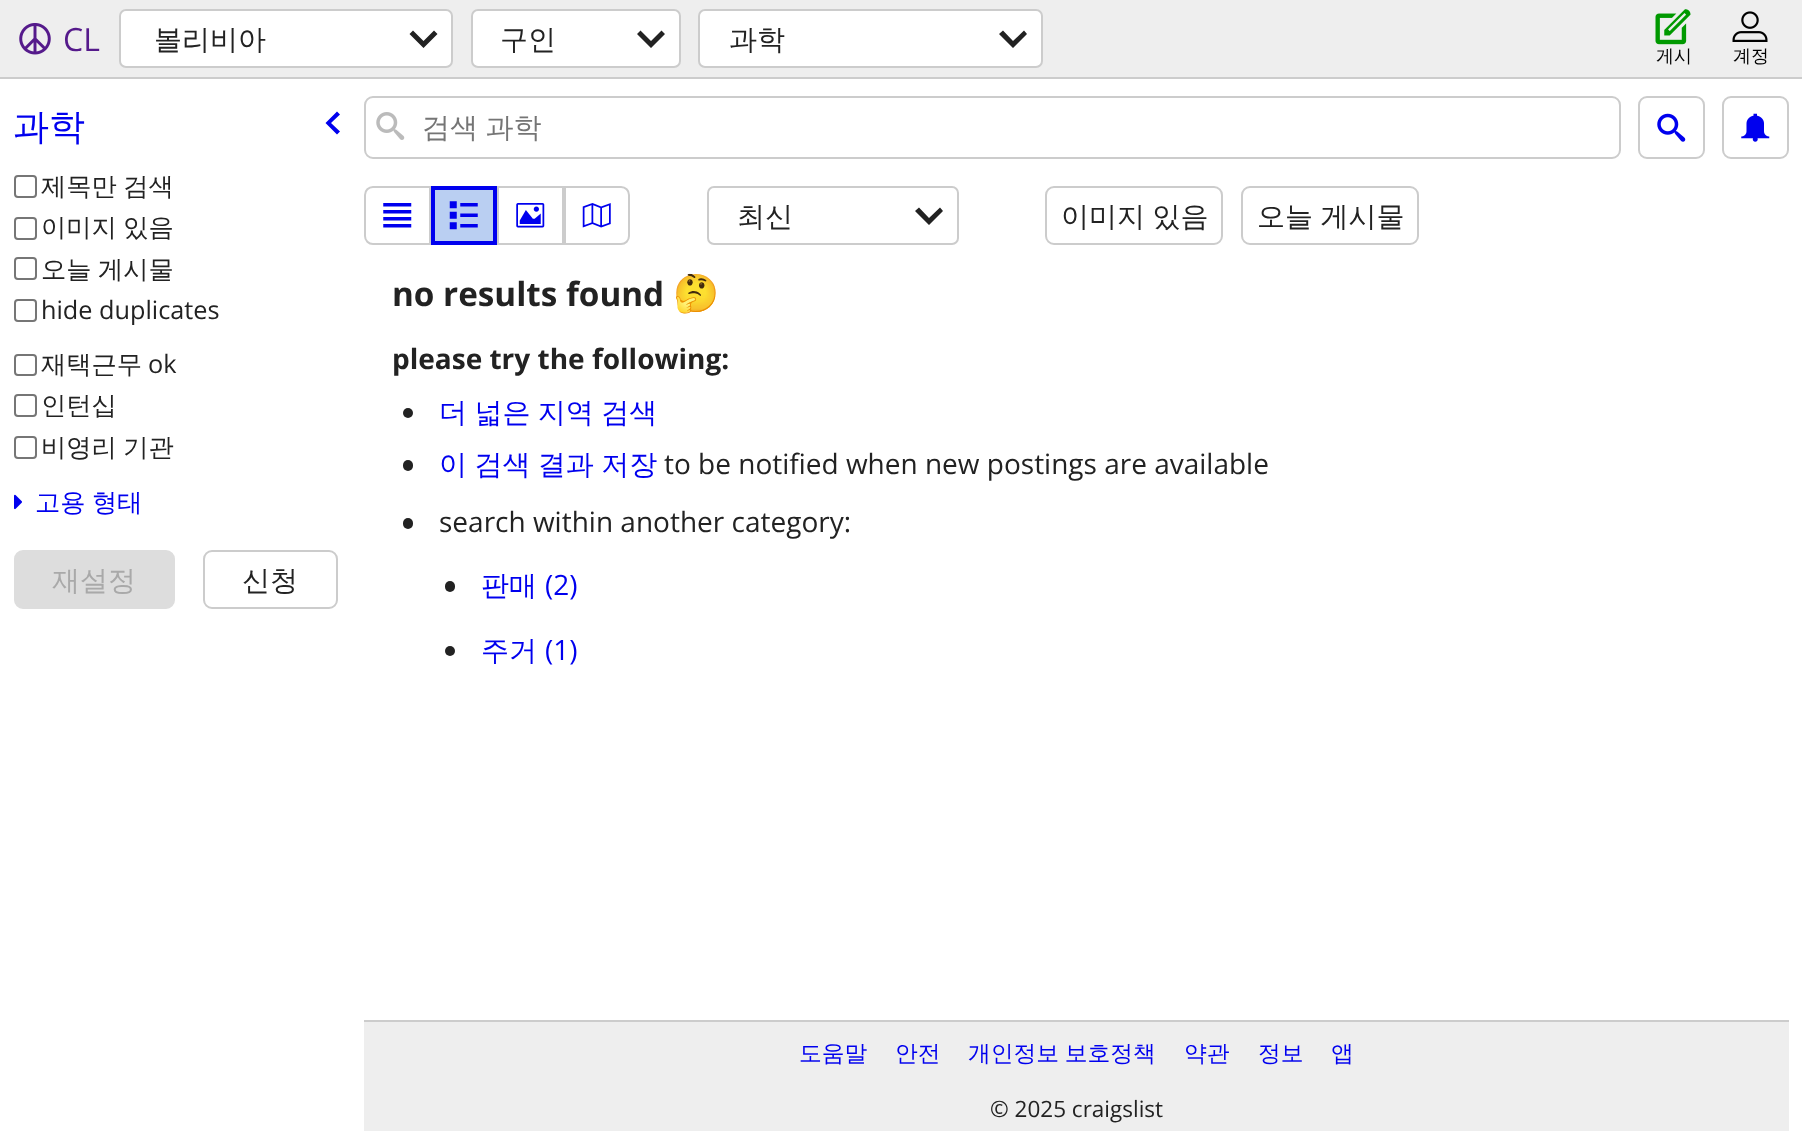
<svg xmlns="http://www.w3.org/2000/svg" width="1802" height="1131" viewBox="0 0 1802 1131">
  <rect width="100%" height="100%" fill="#ffffff"/>
  <rect x="0" y="0" width="1802" height="77" fill="#eeeeee"/>
  <rect x="0" y="77" width="1802" height="2" fill="#cccccc"/>
  <image x="19" y="23" width="32" height="32" href="img1.png"/>
  <text x="63" y="51" font-family="Open Sans" font-size="32" fill="#551a8b">CL</text>
  <rect x="120" y="10" width="332" height="57" rx="6" fill="#ffffff" stroke="#cccccc" stroke-width="2"/>
  <text x="154" y="49" font-family="WenQuanYi Zen Hei" font-size="28" font-weight="500" fill="#222222">볼리비아</text>
  <path d="M437.5 34L434 30.5L423.5 41L413 30.5L409.5 34L423.5 48Z" fill="#222222"/>
  <rect x="472" y="10" width="208" height="57" rx="6" fill="#ffffff" stroke="#cccccc" stroke-width="2"/>
  <text x="500" y="49" font-family="WenQuanYi Zen Hei" font-size="28" font-weight="500" fill="#222222">구인</text>
  <path d="M665 34L661.5 30.5L651 41L640.5 30.5L637 34L651 48Z" fill="#222222"/>
  <rect x="699" y="10" width="343" height="57" rx="6" fill="#ffffff" stroke="#cccccc" stroke-width="2"/>
  <text x="729" y="49" font-family="WenQuanYi Zen Hei" font-size="28" font-weight="500" fill="#222222">과학</text>
  <path d="M1027 34L1024 30.5L1013 41L1003 30.5L999 34L1013 48Z" fill="#222222"/>
  <image x="1655" y="9" width="36" height="36" href="img2.png"/>
  <text x="1656" y="62" font-family="WenQuanYi Zen Hei" font-size="18" font-weight="500" fill="#000000">게시</text>
  <image x="1732" y="11" width="36" height="31" href="img3.png"/>
  <text x="1733" y="62" font-family="WenQuanYi Zen Hei" font-size="18" font-weight="500" fill="#000000">계정</text>
  <text x="13" y="139" font-family="WenQuanYi Zen Hei" font-size="36" font-weight="500" fill="#0000ee">과학</text>
  <path d="M337 134.5L340 131.5L331 123L340 114.5L337 111.5L325.5 123Z" fill="#0000ee"/>
  <rect x="15" y="176" width="21" height="21" rx="3" fill="none" stroke="#767676" stroke-width="2"/>
  <text x="41" y="195" word-spacing="-1" font-family="WenQuanYi Zen Hei" font-size="25.25" font-weight="500" fill="#222222">제목만 검색</text>
  <rect x="15" y="218" width="21" height="21" rx="3" fill="none" stroke="#767676" stroke-width="2"/>
  <text x="41" y="236" word-spacing="-1" font-family="WenQuanYi Zen Hei" font-size="25.25" font-weight="500" fill="#222222">이미지 있음</text>
  <rect x="15" y="258" width="21" height="21" rx="3" fill="none" stroke="#767676" stroke-width="2"/>
  <text x="41" y="278" word-spacing="-1" font-family="WenQuanYi Zen Hei" font-size="25.25" font-weight="500" fill="#222222">오늘 게시물</text>
  <rect x="15" y="300" width="21" height="21" rx="3" fill="none" stroke="#767676" stroke-width="2"/>
  <text x="41" y="319" font-family="Open Sans" font-size="25.25" fill="#222222">hide duplicates</text>
  <rect x="15" y="355" width="21" height="20" rx="3" fill="none" stroke="#767676" stroke-width="2"/>
  <text x="41" y="373" font-family="WenQuanYi Zen Hei" font-size="25.25" font-weight="500" fill="#222222">재택근무</text>
  <text x="148" y="373" font-family="Open Sans" font-size="25.25" fill="#222222">ok</text>
  <rect x="15" y="395" width="21" height="21" rx="3" fill="none" stroke="#767676" stroke-width="2"/>
  <text x="41" y="414" font-family="WenQuanYi Zen Hei" font-size="25.25" font-weight="500" fill="#222222">인턴십</text>
  <rect x="15" y="437" width="21" height="21" rx="3" fill="none" stroke="#767676" stroke-width="2"/>
  <text x="41" y="456" word-spacing="-1" font-family="WenQuanYi Zen Hei" font-size="25.25" font-weight="500" fill="#222222">비영리 기관</text>
  <image x="14" y="494" width="8" height="16" href="img4.png"/>
  <text x="35" y="511" word-spacing="-1" font-family="WenQuanYi Zen Hei" font-size="25.25" font-weight="500" fill="#0000ee">고용 형태</text>
  <rect x="15" y="551" width="159" height="57" rx="8" fill="#dddddd" stroke="#dddddd" stroke-width="2"/>
  <text x="52" y="590" font-family="WenQuanYi Zen Hei" font-size="28" font-weight="500" fill="#a9a9a9">재설정</text>
  <rect x="204" y="551" width="133" height="57" rx="8" fill="none" stroke="#cccccc" stroke-width="2"/>
  <text x="242" y="590" font-family="WenQuanYi Zen Hei" font-size="28" font-weight="500" fill="#222222">신청</text>
  <rect x="365" y="97" width="1255" height="61" rx="8" fill="none" stroke="#cccccc" stroke-width="2"/>
  <image x="376" y="112" width="29" height="28" href="img5.png"/>
  <text x="422" y="137" word-spacing="-1" font-family="WenQuanYi Zen Hei" font-size="28" font-weight="500" fill="#757575">검색 과학</text>
  <rect x="1639" y="97" width="65" height="61" rx="8" fill="none" stroke="#cccccc" stroke-width="2"/>
  <image x="1657" y="113" width="29" height="29" href="img6.png"/>
  <rect x="1723" y="97" width="65" height="61" rx="8" fill="none" stroke="#cccccc" stroke-width="2"/>
  <image x="1741" y="113" width="29" height="29" href="img7.png"/>
  <path d="M373 187H430V244H373C368.5 244 365 240.5 365 236V195C365 190.5 368.5 187 373 187Z" fill="none" stroke="#cccccc" stroke-width="2"/>
  <image x="383" y="203" width="29" height="25" href="img8.png"/>
  <rect x="433" y="188" width="62" height="55" fill="#bacff2" stroke="#0000ee" stroke-width="4"/>
  <image x="449" y="201" width="29" height="29" href="img9.png"/>
  <rect x="498" y="187" width="65" height="57" fill="none" stroke="#cccccc" stroke-width="2"/>
  <image x="516" y="203" width="29" height="25" href="img10.png"/>
  <path d="M565 187H621C625.5 187 629 190.5 629 195V236C629 240.5 625.5 244 621 244H565Z" fill="none" stroke="#cccccc" stroke-width="2"/>
  <image x="582" y="203" width="29" height="25" href="img11.png"/>
  <rect x="708" y="187" width="250" height="57" rx="6" fill="none" stroke="#cccccc" stroke-width="2"/>
  <text x="737" y="226" font-family="WenQuanYi Zen Hei" font-size="28" font-weight="500" fill="#222222">최신</text>
  <path d="M943 211L940 207.5L929 218L919 207.5L915 211L929 225Z" fill="#222222"/>
  <rect x="1046" y="187" width="176" height="57" rx="8" fill="none" stroke="#cccccc" stroke-width="2"/>
  <text x="1061" y="226" word-spacing="-1" font-family="WenQuanYi Zen Hei" font-size="28" font-weight="500" fill="#222222">이미지 있음</text>
  <rect x="1242" y="187" width="176" height="57" rx="8" fill="none" stroke="#cccccc" stroke-width="2"/>
  <text x="1257" y="226" word-spacing="-1" font-family="WenQuanYi Zen Hei" font-size="28" font-weight="500" fill="#222222">오늘 게시물</text>
  <text x="392" y="306" font-family="Open Sans" font-size="33.25" font-weight="bold" fill="#222222">no results found</text>
  <text x="673" y="306" font-family="Noto Color Emoji" font-size="37" font-weight="bold" fill="#222222">🤔</text>
  <text x="392" y="369" font-family="Open Sans" font-size="28" font-weight="bold" fill="#222222">please try the following:</text>
  <circle cx="408" cy="413" r="5" fill="#222222"/>
  <text x="439" y="422" word-spacing="-1" font-family="WenQuanYi Zen Hei" font-size="28" font-weight="500" fill="#0000ee">더 넓은 지역 검색</text>
  <rect x="403" y="460" width="10" height="11" rx="5" fill="#222222"/>
  <text x="439" y="474" word-spacing="-1" font-family="WenQuanYi Zen Hei" font-size="28" font-weight="500" fill="#0000ee">이 검색 결과 저장</text>
  <text x="664" y="474" font-family="Open Sans" font-size="28" fill="#222222">to be notified when new postings are available</text>
  <rect x="403" y="518" width="10" height="11" rx="5" fill="#222222"/>
  <text x="439" y="532" font-family="Open Sans" font-size="28" fill="#222222">search within another category:</text>
  <rect x="445" y="581" width="10" height="11" rx="5" fill="#222222"/>
  <text x="481" y="595" font-family="WenQuanYi Zen Hei" font-size="28" font-weight="500" fill="#0000ee">판매</text>
  <text x="545" y="595" font-family="Open Sans" font-size="28" fill="#0000ee">(2)</text>
  <circle cx="450" cy="651" r="5" fill="#222222"/>
  <text x="481" y="660" font-family="WenQuanYi Zen Hei" font-size="28" font-weight="500" fill="#0000ee">주거</text>
  <text x="545" y="660" font-family="Open Sans" font-size="28" fill="#0000ee">(1)</text>
  <rect x="364" y="1022" width="1425" height="109" fill="#eeeeee"/>
  <rect x="364" y="1020" width="1425" height="2" fill="#cccccc"/>
  <text x="799" y="1061" font-family="WenQuanYi Zen Hei" font-size="22.75" font-weight="500" fill="#0000ee">도움말</text>
  <text x="895" y="1061" font-family="WenQuanYi Zen Hei" font-size="22.75" font-weight="500" fill="#0000ee">안전</text>
  <text x="968" y="1061" word-spacing="-1" font-family="WenQuanYi Zen Hei" font-size="22.75" font-weight="500" fill="#0000ee">개인정보 보호정책</text>
  <text x="1184" y="1061" font-family="WenQuanYi Zen Hei" font-size="22.75" font-weight="500" fill="#0000ee">약관</text>
  <text x="1258" y="1061" font-family="WenQuanYi Zen Hei" font-size="22.75" font-weight="500" fill="#0000ee">정보</text>
  <text x="1331" y="1061" font-family="WenQuanYi Zen Hei" font-size="22.75" font-weight="500" fill="#0000ee">앱</text>
  <text x="990" y="1117" font-family="Open Sans" font-size="22.5" fill="#222222">© 2025 craigslist</text>
</svg>
